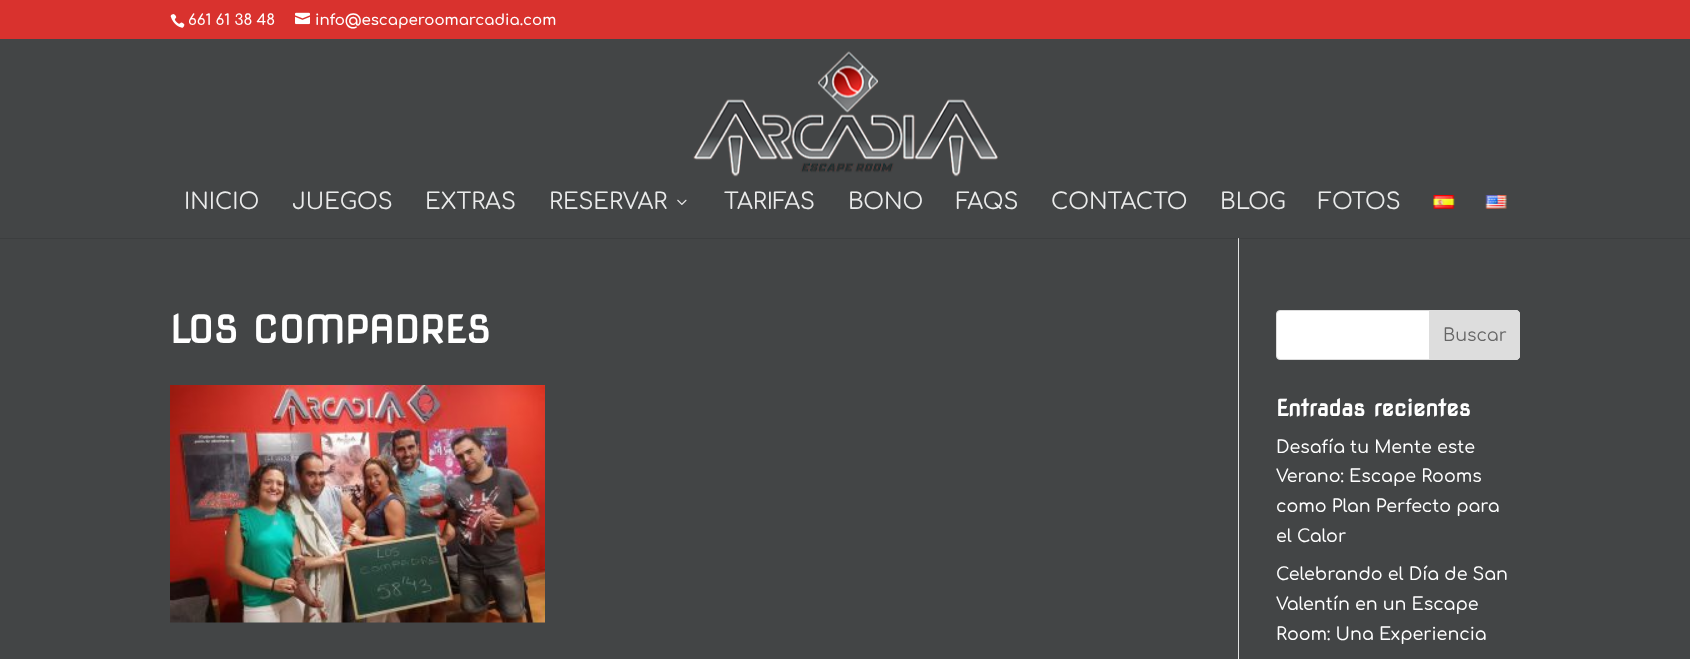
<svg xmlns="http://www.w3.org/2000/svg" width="1690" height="659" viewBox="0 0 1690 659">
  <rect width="100%" height="100%" fill="#434546"/>
  <rect x="0" y="238" width="1690" height="1" fill="#3c3e3f"/>
  <rect x="0" y="0" width="1690" height="39" fill="#d9322e"/>
  <image x="170" y="14" width="15" height="14" href="img1.png"/>
  <text x="188" y="25" font-family="Comfortaa" font-size="15" font-weight="600" fill="#ffffff">661 61 38 48</text>
  <image x="295" y="12" width="15" height="13" href="img2.png"/>
  <text x="315" y="25" font-family="Comfortaa" font-size="15" font-weight="600" fill="#ffffff">info@escaperoomarcadia.com</text>
  <image x="693" y="51" width="305" height="126" href="img3.png"/>
  <text x="184" y="209" font-family="Comfortaa" font-size="22.5" fill="#eaebeb">INICIO</text>
  <text x="292" y="209" font-family="Comfortaa" font-size="22.5" fill="#eaebeb">JUEGOS</text>
  <text x="425" y="209" font-family="Comfortaa" font-size="22.5" fill="#eaebeb">EXTRAS</text>
  <text x="549" y="209" font-family="Comfortaa" font-size="22.5" fill="#eaebeb">RESERVAR</text>
  <image x="677" y="199" width="10" height="6" href="img4.png"/>
  <text x="724" y="209" font-family="Comfortaa" font-size="22.5" fill="#eaebeb">TARIFAS</text>
  <text x="848" y="209" font-family="Comfortaa" font-size="22.5" fill="#eaebeb">BONO</text>
  <text x="956" y="209" font-family="Comfortaa" font-size="22.5" fill="#eaebeb">FAQS</text>
  <text x="1051" y="209" font-family="Comfortaa" font-size="22.5" fill="#eaebeb">CONTACTO</text>
  <text x="1220" y="209" font-family="Comfortaa" font-size="22.5" fill="#eaebeb">BLOG</text>
  <text x="1318" y="209" font-family="Comfortaa" font-size="22.5" fill="#eaebeb">FOTOS</text>
  <image x="1433" y="195" width="22" height="14" href="img5.png"/>
  <image x="1485" y="195" width="22" height="14" href="img6.png"/>
  <rect x="1238" y="238" width="1" height="421" fill="#e2e2e2"/>
  <rect x="1238" y="238" width="1" height="1" fill="#cbcbcb"/>
  <text x="170" y="343" font-family="Nova Square" font-size="37.5" font-weight="bold" fill="#ffffff">LOS COMPADRES</text>
  <image x="170" y="385" width="375" height="238" href="img7.png"/>
  <rect x="1276.5" y="310.5" width="243" height="49" rx="3.5" fill="#ffffff" stroke="#dddddd"/>
  <path d="M1429.5 310.5H1516C1518 310.5 1519.5 312 1519.5 314V356C1519.5 358 1518 359.5 1516 359.5H1429.5Z" fill="#dddddd" stroke="#dddddd"/>
  <text x="1443" y="341" font-family="Comfortaa" font-size="17.5" fill="#666666">Buscar</text>
  <text x="1276" y="416" font-family="Nova Square" font-size="22.5" font-weight="bold" fill="#ffffff">Entradas recientes</text>
  <text x="1276" y="453" font-family="Comfortaa" font-size="17.5" font-weight="500" fill="#ffffff">Desafía tu Mente este</text>
  <text x="1276" y="482" font-family="Comfortaa" font-size="17.5" font-weight="500" fill="#ffffff">Verano: Escape Rooms</text>
  <text x="1276" y="512" font-family="Comfortaa" font-size="17.5" font-weight="500" fill="#ffffff">como Plan Perfecto para</text>
  <text x="1276" y="542" font-family="Comfortaa" font-size="17.5" font-weight="500" fill="#ffffff">el Calor</text>
  <text x="1276" y="580" font-family="Comfortaa" font-size="17.5" font-weight="500" fill="#ffffff">Celebrando el Día de San</text>
  <text x="1276" y="610" font-family="Comfortaa" font-size="17.5" font-weight="500" fill="#ffffff">Valentín en un Escape</text>
  <text x="1276" y="640" font-family="Comfortaa" font-size="17.5" font-weight="500" fill="#ffffff">Room: Una Experiencia</text>
</svg>
